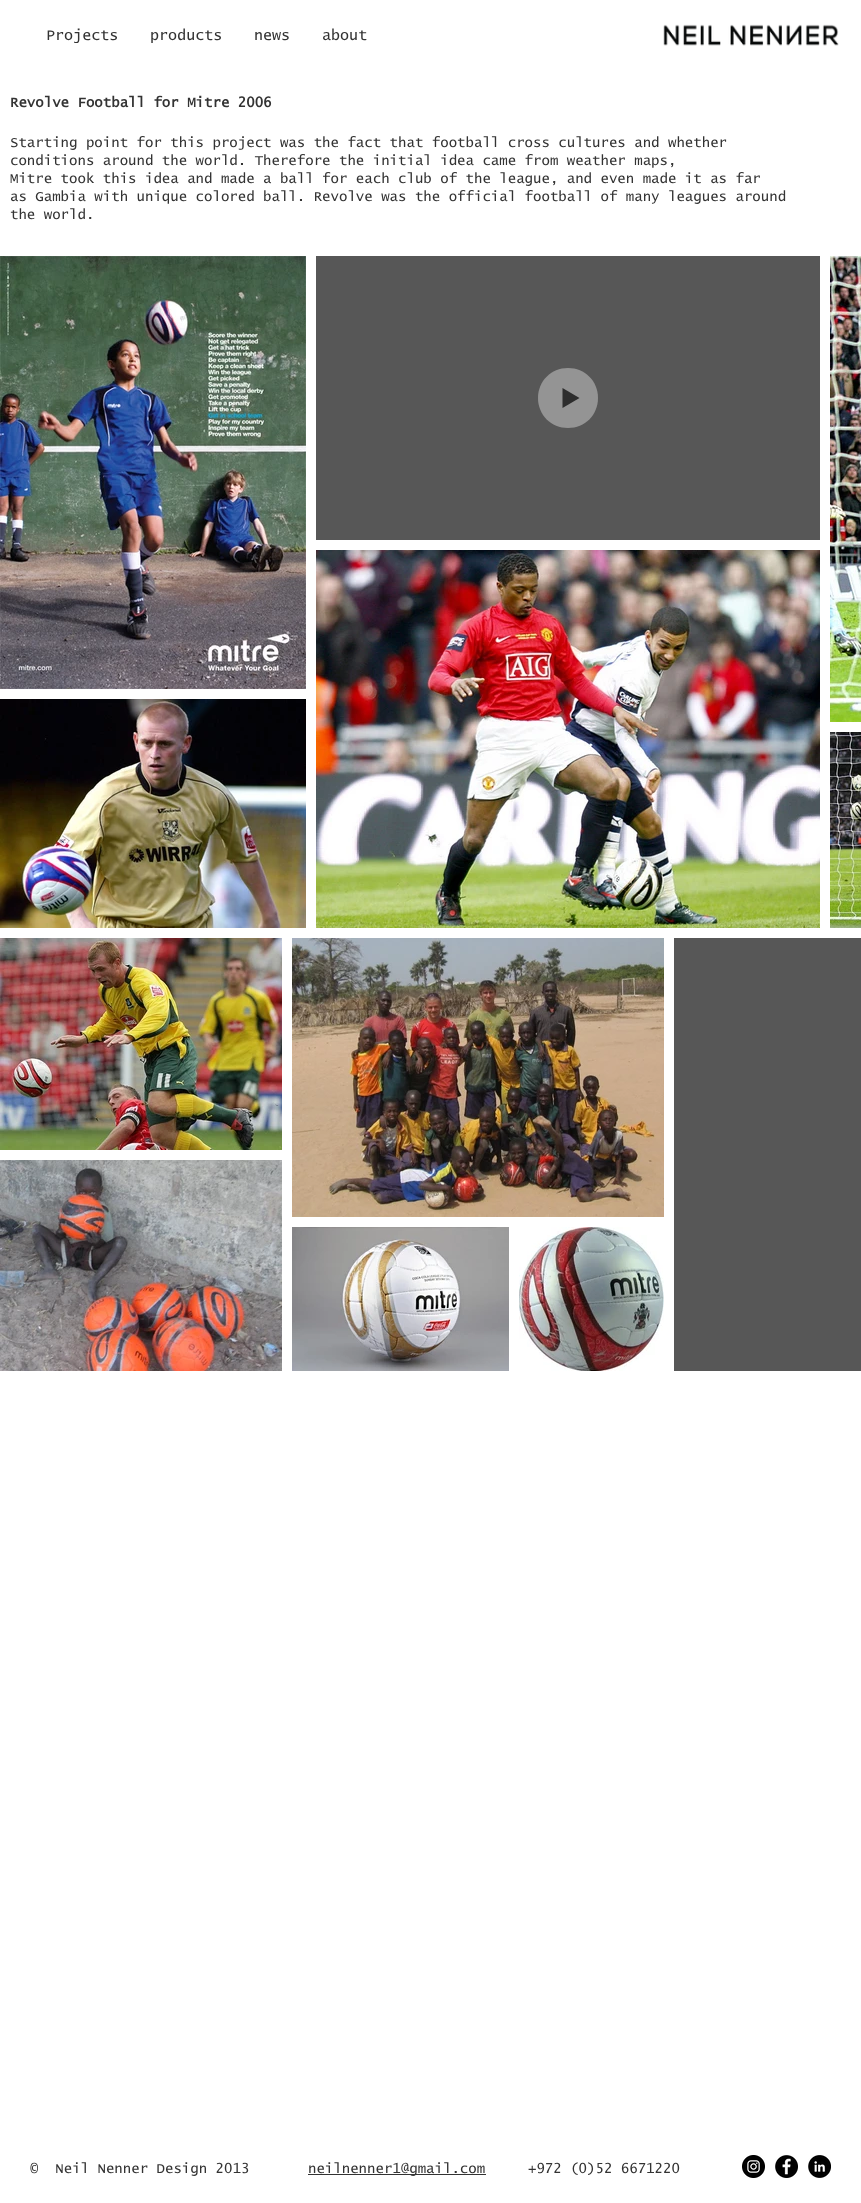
<svg xmlns="http://www.w3.org/2000/svg" width="861" height="2203" viewBox="0 0 861 2203">
  <rect width="100%" height="100%" fill="#ffffff"/>
  <text x="46" y="40" font-family="'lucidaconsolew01'" font-size="15" fill="#333333">Projects</text>
  <text x="150" y="40" font-family="'lucidaconsolew01'" font-size="15" fill="#333333">products</text>
  <text x="254" y="40" font-family="'lucidaconsolew01'" font-size="15" fill="#333333">news</text>
  <text x="322" y="40" font-family="'lucidaconsolew01'" font-size="15" fill="#333333">about</text>
  <image x="663" y="24" width="176" height="22" href="img1.png"/>
  <text x="10" y="107" font-family="'lucidaconsolew01'" font-size="14" font-weight="bold" fill="#333333">Revolve Football for Mitre 2006</text>
  <text x="10" y="147" font-family="'lucidaconsolew01'" font-size="14" fill="#333333">Starting point for this project was the fact that football cross cultures and whether</text>
  <text x="10" y="165" font-family="'lucidaconsolew01'" font-size="14" fill="#333333">conditions around the world. Therefore the initial idea came from weather maps,</text>
  <text x="10" y="183" font-family="'lucidaconsolew01'" font-size="14" fill="#333333">Mitre took this idea and made a ball for each club of the league, and even made it as far</text>
  <text x="10" y="201" font-family="'lucidaconsolew01'" font-size="14" fill="#333333">as Gambia with unique colored ball. Revolve was the official football of many leagues around</text>
  <text x="10" y="219" font-family="'lucidaconsolew01'" font-size="14" fill="#333333">the world.</text>
  <image x="0" y="256" width="306" height="433" href="img2.png"/>
  <rect x="316" y="256" width="504" height="284" fill="#575757"/>
  <path d="M568 368C585 368 598 381 598 398C598 415 585 428 568 428C551 428 538 415 538 398C538 381 551 368 568 368Z" fill="#949494" fill-rule="evenodd"/>
  <path d="M579.5 398L562.5 408V388Z" fill="#2d2d2d"/>
  <image x="830" y="256" width="31" height="466" href="img3.png"/>
  <image x="0" y="699" width="306" height="229" href="img4.png"/>
  <image x="316" y="550" width="504" height="378" href="img5.png"/>
  <image x="830" y="732" width="31" height="196" href="img6.png"/>
  <image x="0" y="938" width="282" height="212" href="img7.png"/>
  <image x="292" y="938" width="372" height="279" href="img8.png"/>
  <rect x="674" y="938" width="187" height="433" fill="#575757"/>
  <image x="0" y="1160" width="282" height="211" href="img9.png"/>
  <image x="292" y="1227" width="217" height="144" href="img10.png"/>
  <image x="519" y="1227" width="145" height="144" href="img11.png"/>
  <text x="30" y="2173" font-family="'lucidaconsolew01'" font-size="14" fill="#333333" xml:space="preserve">©  Neil Nenner Design 2013</text>
  <rect x="308" y="2174" width="178" height="1" fill="#333333"/>
  <text x="308" y="2173" font-family="'lucidaconsolew01'" font-size="14" fill="#333333">neilnenner1@gmail.com</text>
  <text x="528" y="2173" font-family="'lucidaconsolew01'" font-size="14" fill="#333333">+972 (0)52 6671220</text>
  <image x="742" y="2155" width="23" height="23" href="img12.png"/>
  <image x="775" y="2155" width="23" height="23" href="img13.png"/>
  <image x="808" y="2155" width="23" height="23" href="img14.png"/>
</svg>
